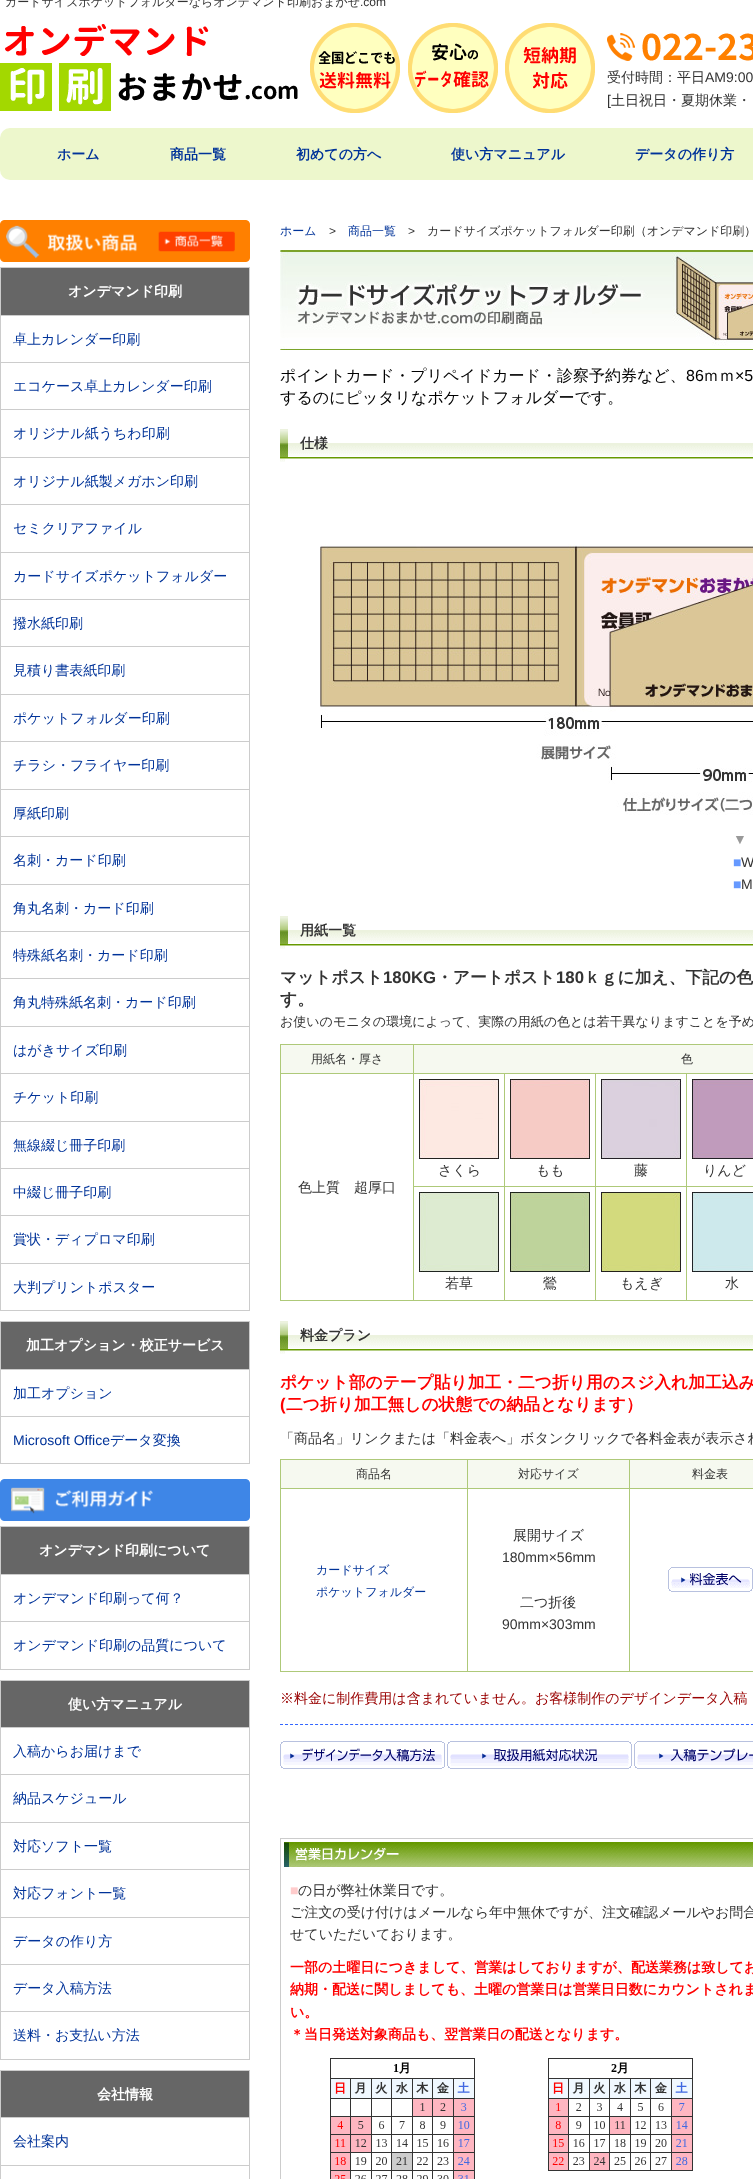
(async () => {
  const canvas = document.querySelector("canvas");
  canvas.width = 753;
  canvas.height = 2179;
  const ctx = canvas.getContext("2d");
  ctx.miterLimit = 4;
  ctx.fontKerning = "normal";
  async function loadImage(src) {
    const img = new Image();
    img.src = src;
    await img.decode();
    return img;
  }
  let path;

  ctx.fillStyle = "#ffffff";
  ctx.fillRect(0, 0, 753, 2179);
  ctx.drawImage(await loadImage("img/1.png"), 0, 24, 298, 87);
  ctx.drawImage(await loadImage("img/2.png"), 310, 23, 285, 90);
  ctx.drawImage(await loadImage("img/3.png"), 607, 33, 146, 28);
  ctx.fillStyle = "#edf7cc";
  ctx.beginPath();
  ctx.roundRect(0, 128, 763, 52, 10);
  ctx.fill();
  ctx.drawImage(await loadImage("img/4.png"), 0, 220, 250, 42);
  ctx.strokeStyle = "#cccccc";
  ctx.strokeRect(0.5, 267.5, 249, 1043);
  for (const [x, y, w, h, color] of [
    [1, 268, 248, 47, "#666666"],
    [1, 315, 248, 1, "#cccccc"],
    [1, 362, 248, 1, "#cccccc"],
    [1, 409, 248, 1, "#cccccc"],
    [1, 457, 248, 1, "#cccccc"],
    [1, 504, 248, 1, "#cccccc"],
    [1, 552, 248, 1, "#cccccc"],
    [1, 599, 248, 1, "#cccccc"],
    [1, 646, 248, 1, "#cccccc"],
    [1, 694, 248, 1, "#cccccc"],
    [1, 741, 248, 1, "#cccccc"],
    [1, 789, 248, 1, "#cccccc"],
    [1, 836, 248, 1, "#cccccc"],
    [1, 884, 248, 1, "#cccccc"],
    [1, 931, 248, 1, "#cccccc"],
    [1, 978, 248, 1, "#cccccc"],
    [1, 1026, 248, 1, "#cccccc"],
    [1, 1073, 248, 1, "#cccccc"],
    [1, 1121, 248, 1, "#cccccc"],
    [1, 1168, 248, 1, "#cccccc"],
    [1, 1215, 248, 1, "#cccccc"],
    [1, 1263, 248, 1, "#cccccc"],
  ]) {
    ctx.fillStyle = color;
    ctx.fillRect(x, y, w, h);
  }
  ctx.strokeRect(0.5, 1321.5, 249, 142);
  for (const [x, y, w, h, color] of [
    [1, 1322, 248, 47, "#666666"],
    [1, 1369, 248, 1, "#cccccc"],
    [1, 1416, 248, 1, "#cccccc"],
  ]) {
    ctx.fillStyle = color;
    ctx.fillRect(x, y, w, h);
  }
  ctx.drawImage(await loadImage("img/5.png"), 0, 1479, 250, 42);
  ctx.strokeRect(0.5, 1526.5, 249, 143);
  for (const [x, y, w, h, color] of [
    [1, 1527, 248, 47, "#666666"],
    [1, 1574, 248, 1, "#cccccc"],
    [1, 1621, 248, 1, "#cccccc"],
  ]) {
    ctx.fillStyle = color;
    ctx.fillRect(x, y, w, h);
  }
  ctx.strokeRect(0.5, 1680.5, 249, 379);
  for (const [x, y, w, h, color] of [
    [1, 1681, 248, 46, "#666666"],
    [1, 1727, 248, 1, "#cccccc"],
    [1, 1774, 248, 1, "#cccccc"],
    [1, 1822, 248, 1, "#cccccc"],
    [1, 1869, 248, 1, "#cccccc"],
    [1, 1917, 248, 1, "#cccccc"],
    [1, 1964, 248, 1, "#cccccc"],
    [1, 2011, 248, 1, "#cccccc"],
  ]) {
    ctx.fillStyle = color;
    ctx.fillRect(x, y, w, h);
  }
  ctx.strokeRect(0.5, 2070.5, 249, 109);
  for (const [x, y, w, h, color] of [
    [1, 2071, 248, 46, "#666666"],
    [1, 2117, 248, 1, "#cccccc"],
    [1, 2165, 248, 1, "#cccccc"],
  ]) {
    ctx.fillStyle = color;
    ctx.fillRect(x, y, w, h);
  }
  ctx.drawImage(await loadImage("img/6.png"), 280, 250, 473, 100);
  ctx.drawImage(await loadImage("img/7.png"), 280, 429, 473, 33);
  ctx.drawImage(await loadImage("img/8.png"), 320, 544, 433, 271);
  ctx.drawImage(await loadImage("img/7.png"), 280, 916, 473, 33);
  for (const [x, y, w, h, color] of [
    [281, 1045, 132, 28, "#f6f9f0"],
    [413, 1044, 340, 1, "#aec979"],
    [686, 1073, 67, 1, "#aec979"],
    [686, 1186, 67, 1, "#aec979"],
    [686, 1300, 67, 1, "#aec979"],
    [686, 1186, 1, 115, "#aec979"],
    [595, 1186, 92, 1, "#aec979"],
    [686, 1073, 1, 114, "#aec979"],
    [595, 1073, 92, 1, "#aec979"],
    [595, 1300, 92, 1, "#aec979"],
    [595, 1186, 1, 115, "#aec979"],
    [504, 1186, 92, 1, "#aec979"],
    [595, 1073, 1, 114, "#aec979"],
    [504, 1073, 92, 1, "#aec979"],
    [504, 1300, 92, 1, "#aec979"],
    [504, 1186, 1, 115, "#aec979"],
    [413, 1186, 92, 1, "#aec979"],
    [504, 1073, 1, 114, "#aec979"],
    [413, 1073, 92, 1, "#aec979"],
    [413, 1300, 92, 1, "#aec979"],
    [413, 1186, 1, 115, "#aec979"],
    [413, 1073, 1, 114, "#aec979"],
    [280, 1073, 134, 1, "#aec979"],
    [413, 1044, 1, 30, "#aec979"],
    [280, 1044, 134, 1, "#aec979"],
    [280, 1300, 134, 1, "#aec979"],
    [280, 1073, 1, 228, "#aec979"],
    [280, 1044, 1, 30, "#aec979"],
    [414, 1045, 339, 28, "#f6f9f0"],
  ]) {
    ctx.fillStyle = color;
    ctx.fillRect(x, y, w, h);
  }
  ctx.drawImage(await loadImage("img/9.png"), 419, 1079, 80, 80);
  ctx.drawImage(await loadImage("img/10.png"), 510, 1079, 80, 80);
  ctx.drawImage(await loadImage("img/11.png"), 601, 1079, 80, 80);
  ctx.drawImage(await loadImage("img/12.png"), 692, 1079, 61, 80);
  ctx.drawImage(await loadImage("img/13.png"), 419, 1192, 80, 80);
  ctx.drawImage(await loadImage("img/14.png"), 510, 1192, 80, 80);
  ctx.drawImage(await loadImage("img/15.png"), 601, 1192, 80, 80);
  ctx.drawImage(await loadImage("img/16.png"), 692, 1192, 61, 80);
  ctx.drawImage(await loadImage("img/7.png"), 280, 1321, 473, 33);
  for (const [x, y, w, h, color] of [
    [281, 1460, 186, 28, "#f6f9f0"],
    [629, 1459, 124, 1, "#aec979"],
    [629, 1488, 124, 1, "#aec979"],
    [629, 1671, 124, 1, "#aec979"],
    [629, 1488, 1, 184, "#aec979"],
    [467, 1488, 163, 1, "#aec979"],
    [629, 1459, 1, 30, "#aec979"],
    [467, 1459, 163, 1, "#aec979"],
    [467, 1671, 163, 1, "#aec979"],
    [467, 1488, 1, 184, "#aec979"],
    [280, 1488, 188, 1, "#aec979"],
    [467, 1459, 1, 30, "#aec979"],
    [280, 1459, 188, 1, "#aec979"],
    [280, 1671, 188, 1, "#aec979"],
    [280, 1488, 1, 184, "#aec979"],
    [280, 1459, 1, 30, "#aec979"],
    [468, 1460, 161, 28, "#f6f9f0"],
    [630, 1460, 123, 28, "#f6f9f0"],
  ]) {
    ctx.fillStyle = color;
    ctx.fillRect(x, y, w, h);
  }
  ctx.drawImage(await loadImage("img/17.png"), 668, 1567, 85, 25);
  path = new Path2D("M280 1724.5H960");
  ctx.strokeStyle = "#3366ff";
  ctx.setLineDash([3, 2.01]);
  ctx.stroke(path);
  ctx.drawImage(await loadImage("img/18.png"), 280, 1741, 165, 28);
  ctx.drawImage(await loadImage("img/19.png"), 447, 1741, 185, 28);
  ctx.drawImage(await loadImage("img/20.png"), 634, 1741, 119, 28);
  ctx.strokeStyle = "#cccccc";
  ctx.setLineDash([]);
  ctx.strokeRect(280.5, 1838.5, 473, 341);
  ctx.drawImage(await loadImage("img/21.png"), 284, 1842, 469, 25);
  ctx.drawImage(await loadImage("img/22.png"), 330, 2058, 363, 121);
  ctx.font = "500 12px WenQuanYi Zen Hei";
  ctx.fillStyle = "#333333";
  ctx.fillText("カードサイズポケットフォルダーならオンデマンド印刷おまかせ", 5, 6);
  ctx.font = "12px Liberation Sans";
  ctx.fillText(".com", 360, 6);
  ctx.font = "500 14px WenQuanYi Zen Hei";
  ctx.fillText("受付時間：平日", 607, 82);
  ctx.font = "14px Liberation Sans";
  ctx.fillText("AM9:00", 705, 82);
  ctx.fillText("[", 607, 105);
  ctx.font = "500 14px WenQuanYi Zen Hei";
  ctx.fillText("土日祝日・夏期休業・", 611, 105);
  ctx.font = "bold 14px WenQuanYi Zen Hei";
  ctx.fillStyle = "#003399";
  for (const [text, x, y] of [
    ["ホーム", 57, 159],
    ["商品一覧", 170, 159],
    ["初めての方へ", 296, 159],
    ["使い方マニュアル", 451, 159],
    ["データの作り方", 635, 159],
  ]) {
    ctx.fillText(text, x, y);
  }
  ctx.fillStyle = "#ffffff";
  ctx.fillText("オンデマンド印刷", 68, 296);
  ctx.font = "500 14px WenQuanYi Zen Hei";
  ctx.fillStyle = "#003399";
  for (const [text, x, y] of [
    ["卓上カレンダー印刷", 13, 344],
    ["エコケース卓上カレンダー印刷", 13, 391],
    ["オリジナル紙うちわ印刷", 13, 438],
    ["オリジナル紙製メガホン印刷", 13, 486],
    ["セミクリアファイル", 13, 533],
    ["カードサイズポケットフォルダー", 13, 581],
    ["撥水紙印刷", 13, 628],
    ["見積り書表紙印刷", 13, 675],
    ["ポケットフォルダー印刷", 13, 723],
    ["チラシ・フライヤー印刷", 13, 770],
    ["厚紙印刷", 13, 818],
    ["名刺・カード印刷", 13, 865],
    ["角丸名刺・カード印刷", 13, 913],
    ["特殊紙名刺・カード印刷", 13, 960],
    ["角丸特殊紙名刺・カード印刷", 13, 1007],
    ["はがきサイズ印刷", 13, 1055],
    ["チケット印刷", 13, 1102],
    ["無線綴じ冊子印刷", 13, 1150],
    ["中綴じ冊子印刷", 13, 1197],
    ["賞状・ディプロマ印刷", 13, 1244],
    ["大判プリントポスター", 13, 1292],
  ]) {
    ctx.fillText(text, x, y);
  }
  ctx.font = "bold 14px WenQuanYi Zen Hei";
  ctx.fillStyle = "#ffffff";
  ctx.fillText("加工オプション・校正サービス", 26, 1350);
  ctx.font = "500 14px WenQuanYi Zen Hei";
  ctx.fillStyle = "#003399";
  ctx.fillText("加工オプション", 13, 1398);
  ctx.font = "14px Liberation Sans";
  ctx.fillText("Microsoft Office", 13, 1445);
  ctx.font = "500 14px WenQuanYi Zen Hei";
  ctx.fillText("データ変換", 110, 1445);
  ctx.font = "bold 14px WenQuanYi Zen Hei";
  ctx.fillStyle = "#ffffff";
  ctx.fillText("オンデマンド印刷について", 39, 1555);
  ctx.font = "500 14px WenQuanYi Zen Hei";
  ctx.fillStyle = "#003399";
  ctx.fillText("オンデマンド印刷って何？", 13, 1603);
  ctx.fillText("オンデマンド印刷の品質について", 13, 1650);
  ctx.font = "bold 14px WenQuanYi Zen Hei";
  ctx.fillStyle = "#ffffff";
  ctx.fillText("使い方マニュアル", 68, 1709);
  ctx.font = "500 14px WenQuanYi Zen Hei";
  ctx.fillStyle = "#003399";
  for (const [text, x, y] of [
    ["入稿からお届けまで", 13, 1756],
    ["納品スケジュール", 13, 1803],
    ["対応ソフト一覧", 13, 1851],
    ["対応フォント一覧", 13, 1898],
    ["データの作り方", 13, 1946],
    ["データ入稿方法", 13, 1993],
    ["送料・お支払い方法", 13, 2040],
  ]) {
    ctx.fillText(text, x, y);
  }
  ctx.font = "bold 14px WenQuanYi Zen Hei";
  ctx.fillStyle = "#ffffff";
  ctx.fillText("会社情報", 97, 2099);
  ctx.font = "500 14px WenQuanYi Zen Hei";
  ctx.fillStyle = "#003399";
  ctx.fillText("会社案内", 13, 2146);
  ctx.font = "500 12px WenQuanYi Zen Hei";
  ctx.fillText("ホーム", 280, 235);
  ctx.font = "12px Liberation Sans";
  ctx.fillStyle = "#333333";
  ctx.fillText(">", 329, 235);
  ctx.font = "500 12px WenQuanYi Zen Hei";
  ctx.fillStyle = "#003399";
  ctx.fillText("商品一覧", 348, 235);
  ctx.font = "12px Liberation Sans";
  ctx.fillStyle = "#333333";
  ctx.fillText(">", 408, 235);
  ctx.font = "500 12px WenQuanYi Zen Hei";
  ctx.fillText("カードサイズポケットフォルダー印刷（オンデマンド印刷）", 427, 235);
  ctx.font = "500 16px WenQuanYi Zen Hei";
  ctx.fillStyle = "#000000";
  ctx.fillText("ポイントカード・プリペイドカード・診察予約券など、", 280, 381);
  ctx.font = "16px Liberation Sans";
  ctx.fillText("86", 686, 381);
  ctx.font = "500 16px WenQuanYi Zen Hei";
  ctx.fillText("ｍｍ", 703, 381);
  ctx.font = "16px Liberation Sans";
  ctx.fillText("×5", 735, 381);
  ctx.font = "500 16px WenQuanYi Zen Hei";
  ctx.fillText("するのにピッタリなポケットフォルダーです。", 280, 403);
  ctx.font = "bold 14px WenQuanYi Zen Hei";
  ctx.fillStyle = "#333333";
  ctx.fillText("仕様", 300, 448);
  ctx.font = "bold 14px Liberation Sans";
  ctx.fillStyle = "#999999";
  ctx.fillText("▼", 733, 844);
  ctx.font = "14px Liberation Sans";
  ctx.fillStyle = "#6699ff";
  ctx.fillText("■", 733, 867);
  ctx.fillStyle = "#333333";
  ctx.fillText("W", 741, 867);
  ctx.fillStyle = "#6699ff";
  ctx.fillText("■", 733, 889);
  ctx.fillStyle = "#333333";
  ctx.fillText("M", 741, 889);
  ctx.font = "bold 14px WenQuanYi Zen Hei";
  ctx.fillText("用紙一覧", 300, 935);
  ctx.font = "bold 16.8px WenQuanYi Zen Hei";
  ctx.fillText("マットポスト", 280, 983);
  ctx.font = "bold 16.8px Liberation Sans";
  ctx.fillText("180KG", 383, 983);
  ctx.font = "bold 16.8px WenQuanYi Zen Hei";
  ctx.fillText("・アートポスト", 436, 983);
  ctx.font = "bold 16.8px Liberation Sans";
  ctx.fillText("180", 556, 983);
  ctx.font = "bold 16.8px WenQuanYi Zen Hei";
  ctx.fillText("ｋｇに加え、下記の色", 584, 983);
  ctx.fillText("す。", 280, 1005);
  ctx.font = "500 13px WenQuanYi Zen Hei";
  ctx.fillText("お使いのモニタの環境によって、実際の用紙の色とは若干異なりますことを予め", 280, 1026);
  ctx.font = "500 12px WenQuanYi Zen Hei";
  ctx.fillText("用紙名・厚さ", 311, 1063);
  ctx.fillText("色", 681, 1063);
  ctx.font = "500 14px WenQuanYi Zen Hei";
  for (const [text, x, y] of [
    ["さくら", 438, 1175],
    ["もも", 536, 1175],
    ["藤", 634, 1175],
    ["りんど", 703, 1175],
    ["色上質　超厚口", 298, 1192],
    ["若草", 445, 1288],
    ["鶯", 543, 1288],
    ["もえぎ", 620, 1288],
    ["水", 725, 1288],
  ]) {
    ctx.fillText(text, x, y);
  }
  ctx.font = "bold 14px WenQuanYi Zen Hei";
  ctx.fillText("料金プラン", 300, 1340);
  ctx.font = "bold 16.8px WenQuanYi Zen Hei";
  ctx.fillStyle = "#ff0000";
  ctx.fillText("ポケット部のテープ貼り加工・二つ折り用のスジ入れ加工込み", 280, 1388);
  ctx.font = "bold 16.8px Liberation Sans";
  ctx.fillText("(", 280, 1410);
  ctx.font = "bold 16.8px WenQuanYi Zen Hei";
  ctx.fillText("二つ折り加工無しの状態での納品となります）", 286, 1410);
  ctx.font = "500 14px WenQuanYi Zen Hei";
  ctx.fillStyle = "#333333";
  ctx.fillText("「商品名」リンクまたは「料金表へ」ボタンクリックで各料金表が表示され", 280, 1443);
  ctx.font = "500 12px WenQuanYi Zen Hei";
  for (const [text, x, y] of [
    ["商品名", 356, 1478],
    ["対応サイズ", 518, 1478],
    ["料金表", 692, 1478],
  ]) {
    ctx.fillText(text, x, y);
  }
  ctx.fillStyle = "#003399";
  ctx.fillText("カードサイズ", 316, 1574);
  ctx.fillText("ポケットフォルダー", 316, 1596);
  ctx.font = "500 14px WenQuanYi Zen Hei";
  ctx.fillStyle = "#333333";
  ctx.fillText("展開サイズ", 513, 1540);
  ctx.font = "14px Liberation Sans";
  ctx.fillText("180mm×56mm", 502, 1562);
  ctx.font = "500 14px WenQuanYi Zen Hei";
  ctx.fillText("二つ折後", 520, 1607);
  ctx.font = "14px Liberation Sans";
  ctx.fillText("90mm×303mm", 502, 1629);
  ctx.font = "500 14px WenQuanYi Zen Hei";
  ctx.fillStyle = "#990000";
  ctx.fillText("※料金に制作費用は含まれていません。お客様制作のデザインデータ入稿", 280, 1703);
  ctx.font = "14px Liberation Sans";
  ctx.fillStyle = "#ffcccc";
  ctx.fillText("■", 290, 1895);
  ctx.font = "500 14px WenQuanYi Zen Hei";
  ctx.fillStyle = "#333333";
  for (const [text, x, y] of [
    ["の日が弊社休業日です。", 298, 1895],
    ["ご注文の受け付けはメールなら年中無休ですが、注文確認メールやお問合", 290, 1917],
    ["せていただいております。", 290, 1939],
  ]) {
    ctx.fillText(text, x, y);
  }
  ctx.font = "bold 14px WenQuanYi Zen Hei";
  ctx.fillStyle = "#ff0000";
  for (const [text, x, y] of [
    ["一部の土曜日につきまして、営業はしておりますが、配送業務は致してお", 290, 1972],
    ["納期・配送に関しましても、土曜の営業日は営業日日数にカウントされま", 290, 1994],
    ["い。", 290, 2017],
    ["＊当日発送対象商品も、翌営業日の配送となります。", 290, 2039],
  ]) {
    ctx.fillText(text, x, y);
  }
})();
